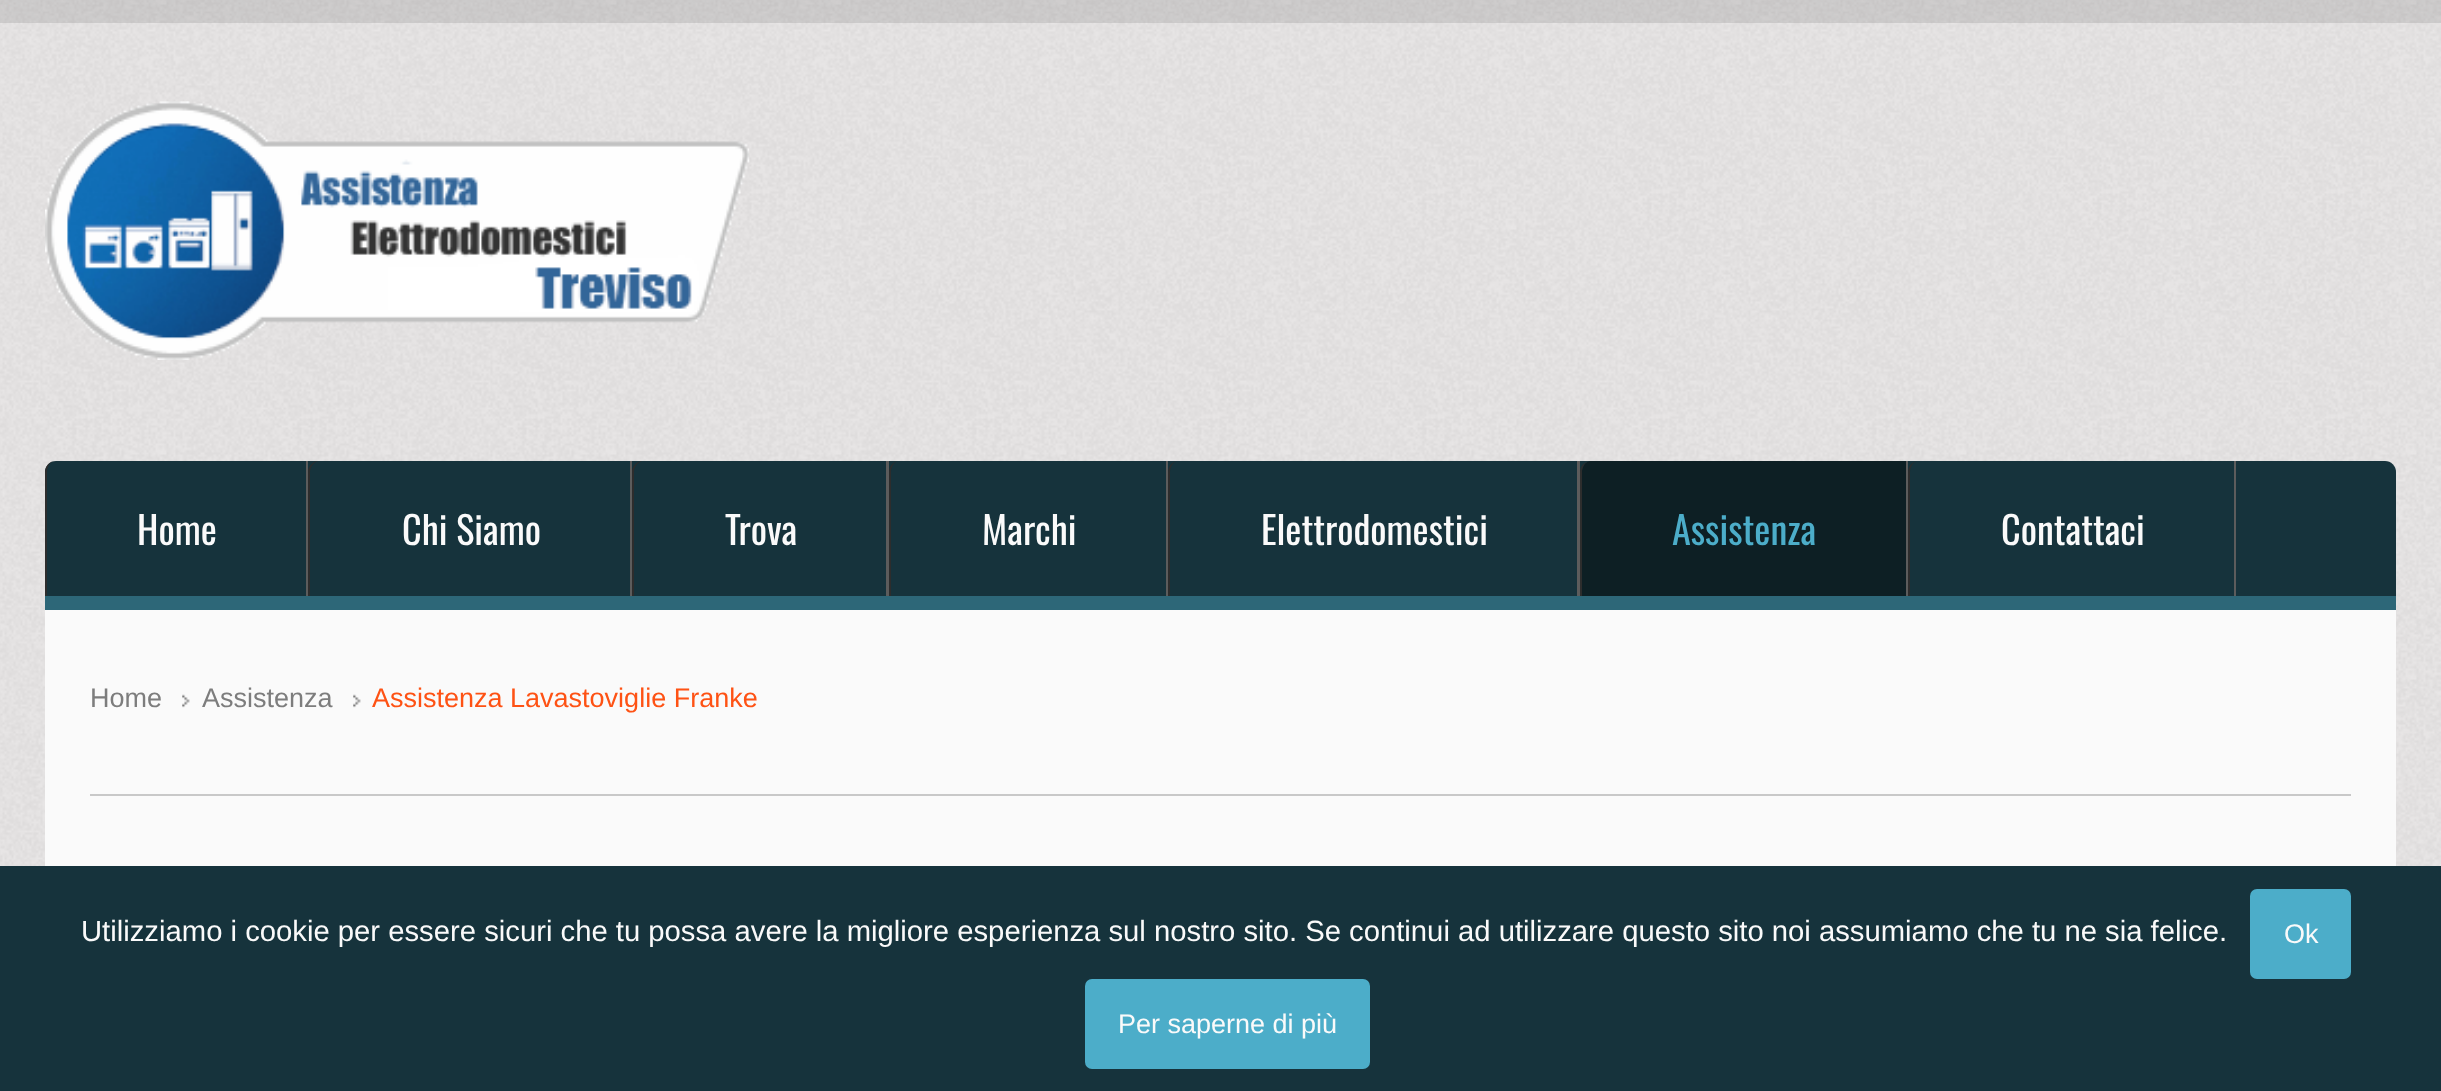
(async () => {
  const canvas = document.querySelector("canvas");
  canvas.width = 2441;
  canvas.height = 1091;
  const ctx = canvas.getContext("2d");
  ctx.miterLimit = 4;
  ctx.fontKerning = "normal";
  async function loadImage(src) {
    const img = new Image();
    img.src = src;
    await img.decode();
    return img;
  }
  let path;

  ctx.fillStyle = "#ffffff";
  ctx.fillRect(0, 0, 2441, 1091);
  ctx.drawImage(await loadImage("img/1.png"), 0, 0, 2441, 866);
  ctx.fillStyle = "rgba(0, 0, 0, 0.1)";
  ctx.fillRect(0, 0, 2441, 23);
  ctx.drawImage(await loadImage("img/2.png"), 45, 101, 705, 259);
  ctx.fillStyle = "#16333c";
  ctx.beginPath();
  ctx.roundRect(45, 461, 2351, 149, [11, 11, 0, 0]);
  ctx.fill();
  ctx.fillStyle = "#2d6778";
  ctx.fillRect(45, 596, 2351, 14);
  ctx.fillStyle = "#5c5c5c";
  ctx.fillRect(306, 461, 2, 135);
  ctx.fillStyle = "#2d2d2d";
  path = new Path2D("M45 596H47V472C47 467 50 462 54 461C49 462 45 467 45 472Z");
  ctx.fill(path);
  ctx.fillStyle = "#5c5c5c";
  ctx.fillRect(630, 461, 2, 135);
  ctx.fillStyle = "#2d2d2d";
  path = new Path2D("M308 596H310V472C310 467 314 462 318 461H317C313 462 309 466 308 470Z");
  ctx.fill(path);
  ctx.fillStyle = "#5c5c5c";
  ctx.fillRect(886, 461, 3, 135);
  ctx.fillStyle = "#2d2d2d";
  path = new Path2D("M632 596H634V472C634 467 638 462 642 461H641C637 462 633 466 632 470Z");
  ctx.fill(path);
  ctx.fillStyle = "#5c5c5c";
  ctx.fillRect(1166, 461, 2, 135);
  ctx.fillStyle = "#2d2d2d";
  path = new Path2D("M889 596H891V472C891 467 894 462 898 461C893 462 889 467 889 472Z");
  ctx.fill(path);
  ctx.fillStyle = "#5c5c5c";
  ctx.fillRect(1577, 461, 3, 135);
  ctx.fillStyle = "#2d2d2d";
  path = new Path2D("M1168 596H1170V472C1170 467 1173 462 1177 461C1172 462 1168 467 1168 472Z");
  ctx.fill(path);
  ctx.fillStyle = "#0d1f24";
  path = new Path2D("M1591 461H1906V596H1582V472C1582 466 1586 461 1591 461Z");
  ctx.fill(path);
  ctx.fillStyle = "#5c5c5c";
  ctx.fillRect(1906, 461, 2, 135);
  ctx.fillStyle = "#2d2d2d";
  path = new Path2D("M1580 596H1582V472C1582 467 1585 462 1589 461C1584 462 1580 467 1580 472Z");
  ctx.fill(path);
  ctx.fillStyle = "#5c5c5c";
  ctx.fillRect(2234, 461, 2, 135);
  ctx.fillStyle = "#2d2d2d";
  path = new Path2D("M1908 596H1910V472C1910 467 1913 462 1917 461C1912 462 1908 467 1908 472Z");
  ctx.fill(path);
  ctx.fillStyle = "#fafafa";
  ctx.fillRect(45, 610, 2351, 256);
  ctx.fillStyle = "#c8c8c8";
  ctx.fillRect(90, 794, 2261, 2);
  ctx.drawImage(await loadImage("img/3.png"), 182, 694, 8, 14);
  ctx.drawImage(await loadImage("img/3.png"), 353, 694, 8, 14);
  ctx.fillStyle = "#16333c";
  ctx.fillRect(0, 866, 2441, 225);
  ctx.fillStyle = "#4cadc9";
  ctx.beginPath();
  ctx.roundRect(2250, 889, 101, 90, 7);
  ctx.fill();
  ctx.beginPath();
  ctx.roundRect(1085, 979, 285, 90, 7);
  ctx.fill();
  ctx.font = "38.25px Oswald";
  ctx.fillStyle = "#fafafa";
  for (const [text, x, y] of [
    ["Home", 137, 545],
    ["Chi Siamo", 402, 545],
    ["Trova", 725, 545],
    ["Marchi", 982, 545],
    ["Elettrodomestici", 1261, 545],
  ]) {
    ctx.fillText(text, x, y);
  }
  ctx.fillStyle = "#4cadc9";
  ctx.fillText("Assistenza", 1672, 545);
  ctx.fillStyle = "#fafafa";
  ctx.fillText("Contattaci", 2001, 545);
  ctx.font = "27px Liberation Sans";
  ctx.fillStyle = "#7d7d7d";
  ctx.fillText("Home", 90, 707);
  ctx.fillText("Assistenza", 202, 707);
  ctx.fillStyle = "#fe5214";
  ctx.fillText("Assistenza Lavastoviglie Franke", 372, 707);
  ctx.font = "29.25px Liberation Sans";
  ctx.fillStyle = "#fafafa";
  ctx.fillText("Utilizziamo i cookie per essere sicuri che tu possa avere la migliore esperienza sul nostro sito. Se continui ad utilizzare questo sito noi assumiamo che tu ne sia felice.", 81, 941);
  ctx.font = "27px Liberation Sans";
  ctx.fillText("Ok", 2284, 943);
  ctx.fillText("Per saperne di più", 1118, 1033);
})();
